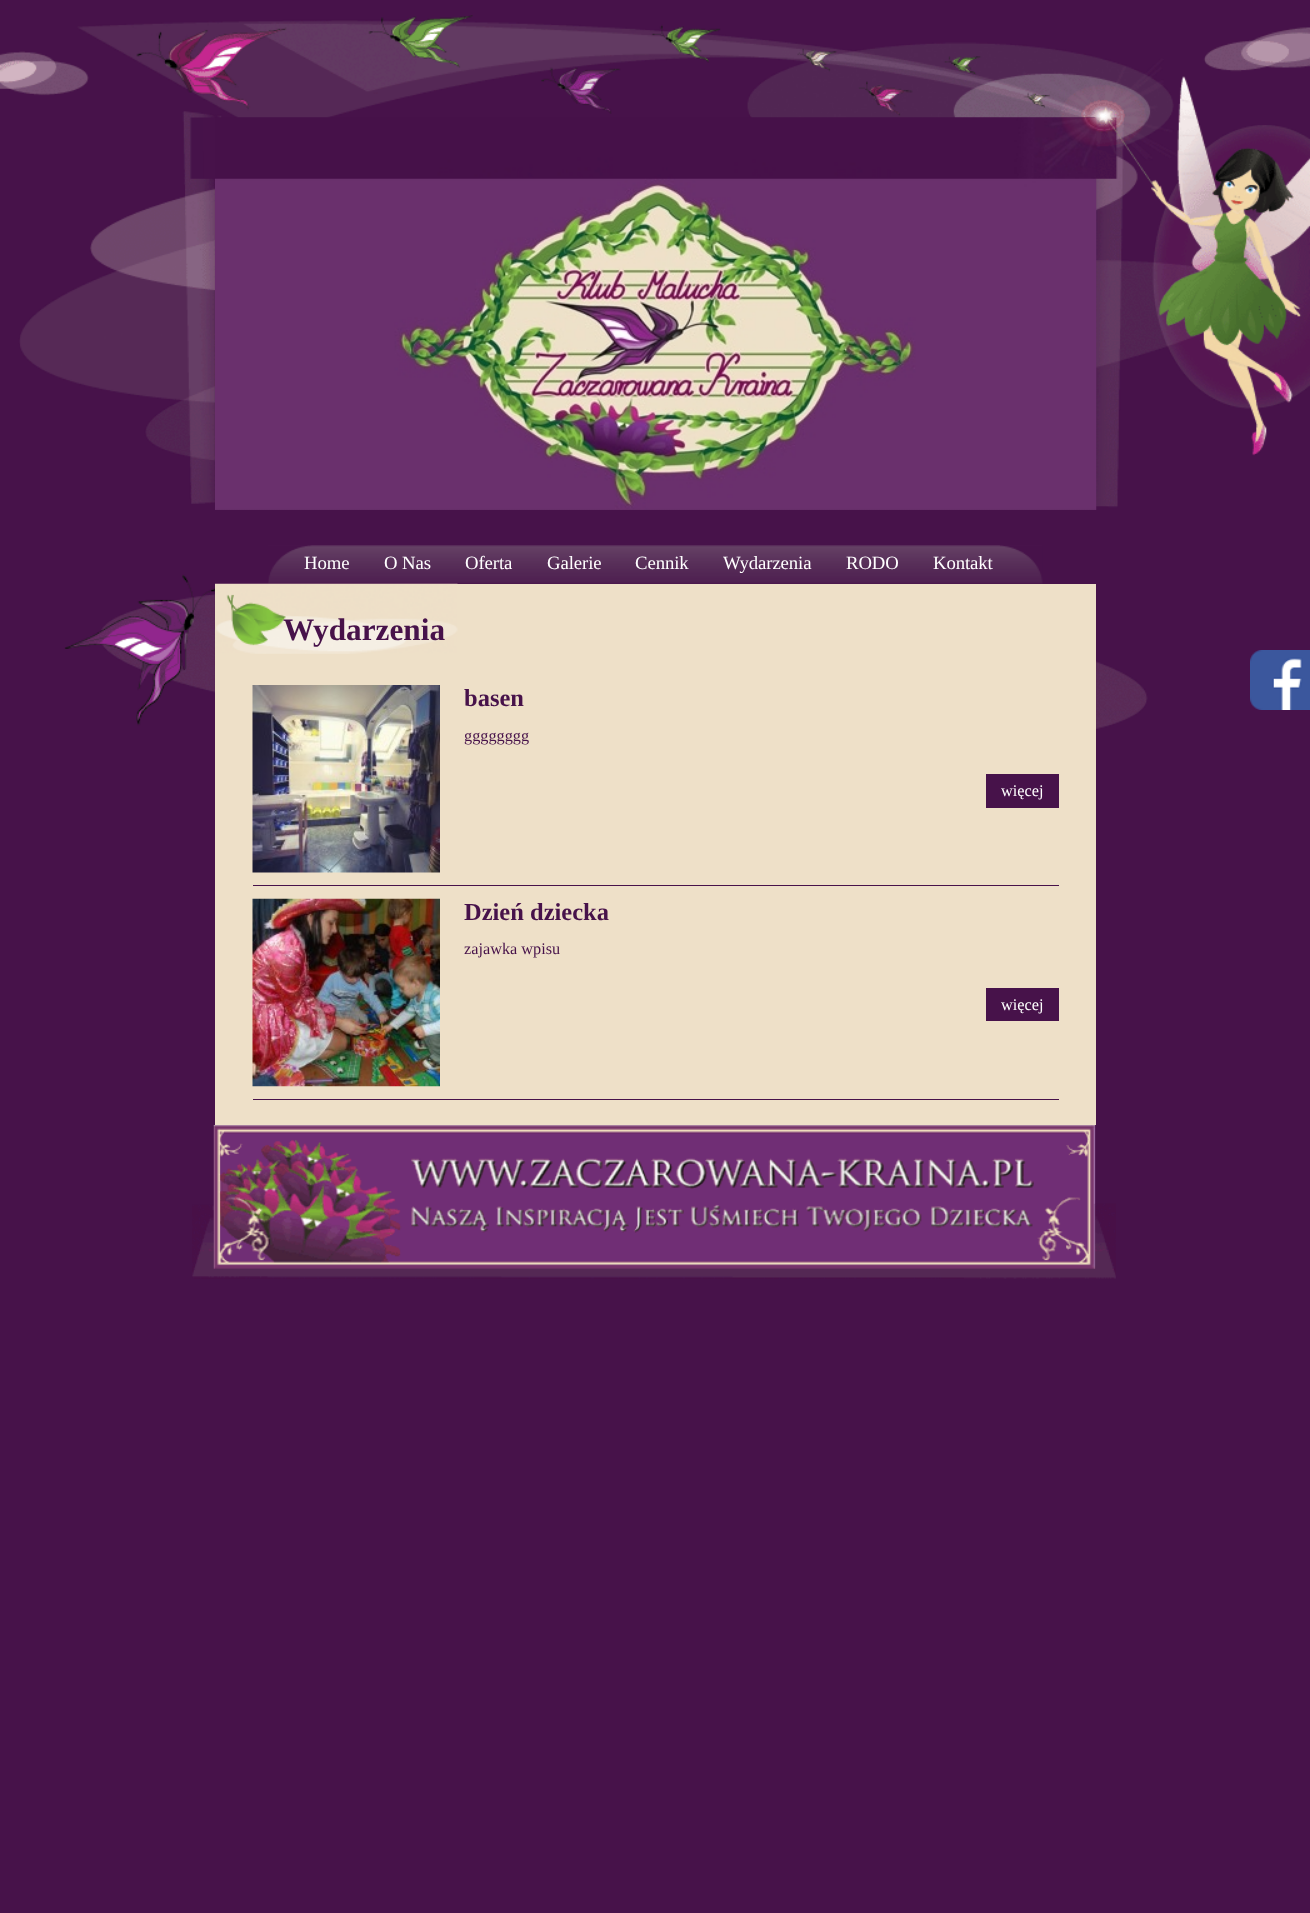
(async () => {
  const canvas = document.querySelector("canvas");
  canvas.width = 1310;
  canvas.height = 1913;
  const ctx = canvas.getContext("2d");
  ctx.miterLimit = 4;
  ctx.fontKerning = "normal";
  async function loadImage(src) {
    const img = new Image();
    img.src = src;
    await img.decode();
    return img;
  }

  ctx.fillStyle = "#47124a";
  ctx.fillRect(0, 0, 1310, 1913);
  ctx.drawImage(await loadImage("img/1.png"), 0, 15, 1310, 714);
  ctx.drawImage(await loadImage("img/2.png"), 215, 117, 882, 393);
  ctx.drawImage(await loadImage("img/3.png"), 268, 545, 775, 39);
  ctx.fillStyle = "#eee0c8";
  ctx.fillRect(215, 584, 881, 541);
  ctx.drawImage(await loadImage("img/4.png"), 215, 583, 243, 71);
  ctx.fillStyle = "#47124a";
  ctx.fillRect(253, 885, 806, 1);
  ctx.drawImage(await loadImage("img/5.png"), 252, 685, 188, 188);
  ctx.fillRect(986, 774, 73, 34);
  ctx.fillRect(253, 1099, 806, 1);
  ctx.drawImage(await loadImage("img/6.png"), 252, 898, 188, 189);
  ctx.fillRect(986, 988, 73, 33);
  ctx.drawImage(await loadImage("img/7.png"), 1250, 650, 60, 60);
  ctx.drawImage(await loadImage("img/8.png"), 192, 1125, 924, 154);
  ctx.letterSpacing = "-0.1px";
  ctx.font = "18.75px Liberation Serif";
  ctx.fillStyle = "#ffffff";
  for (const [text, x, y] of [
    ["Home", 304, 569],
    ["O Nas", 384, 569],
    ["Oferta", 465, 569],
    ["Galerie", 547, 569],
    ["Cennik", 635, 569],
    ["Wydarzenia", 723, 569],
    ["RODO", 846, 569],
    ["Kontakt", 933, 569],
  ]) {
    ctx.fillText(text, x, y);
  }
  ctx.letterSpacing = "0px";
  ctx.font = "bold 31.25px Liberation Serif";
  ctx.fillStyle = "#47124a";
  ctx.fillText("Wydarzenia", 283, 640);
  ctx.font = "bold 24.5px Liberation Serif";
  ctx.fillText("basen", 464, 706);
  ctx.font = "16.25px Liberation Serif";
  ctx.fillText("gggggggg", 464, 741);
  ctx.fillStyle = "#ffffff";
  ctx.fillText("więcej", 1001, 796);
  ctx.font = "bold 24.5px Liberation Serif";
  ctx.fillStyle = "#47124a";
  ctx.fillText("Dzień dziecka", 464, 920);
  ctx.font = "16.25px Liberation Serif";
  ctx.fillText("zajawka wpisu", 464, 954);
  ctx.fillStyle = "#ffffff";
  ctx.fillText("więcej", 1001, 1010);
})();
